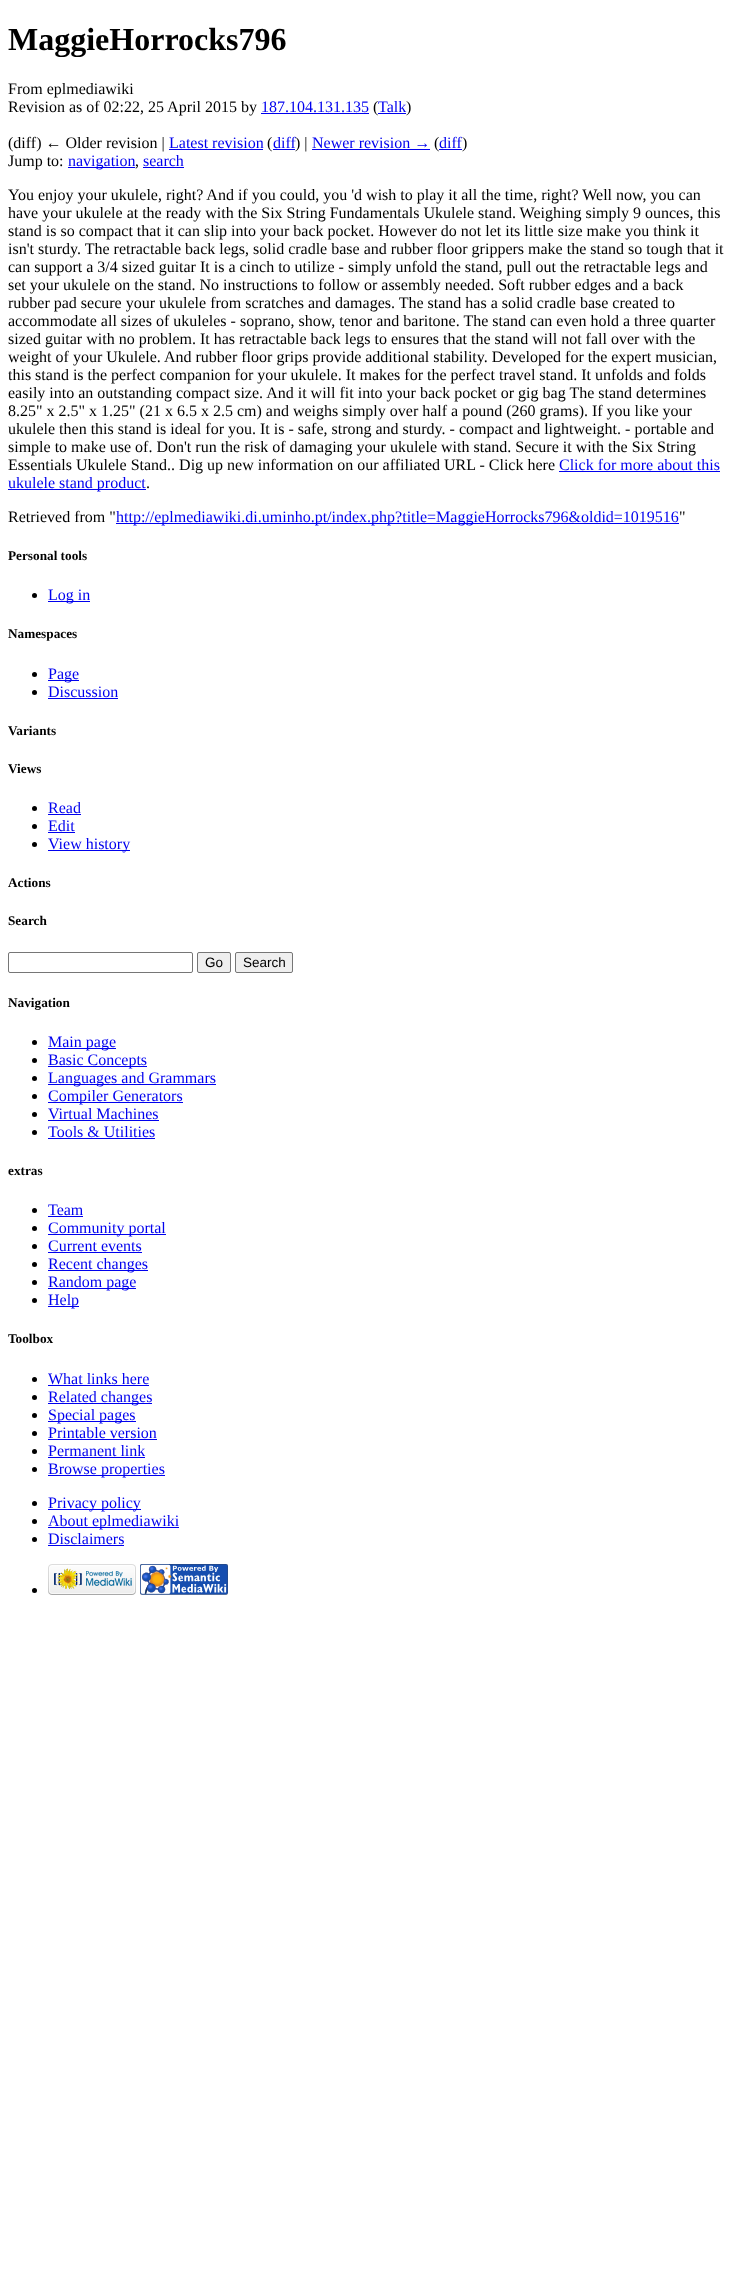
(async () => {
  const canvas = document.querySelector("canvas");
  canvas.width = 734;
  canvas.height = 2289;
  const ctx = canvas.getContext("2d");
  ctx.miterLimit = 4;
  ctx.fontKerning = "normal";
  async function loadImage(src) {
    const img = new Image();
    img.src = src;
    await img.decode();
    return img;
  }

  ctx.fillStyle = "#ffffff";
  ctx.fillRect(0, 0, 734, 2289);
  for (const [x, y, w, h, color] of [
    [261, 113, 108, 1, "#0000ee"],
    [378, 113, 28, 1, "#0000ee"],
    [169, 149, 94, 1, "#0000ee"],
    [273, 149, 22, 1, "#0000ee"],
    [312, 149, 118, 1, "#0000ee"],
    [439, 149, 23, 1, "#0000ee"],
    [68, 167, 67, 1, "#0000ee"],
    [143, 167, 41, 1, "#0000ee"],
    [559, 471, 161, 1, "#0000ee"],
    [8, 489, 138, 1, "#0000ee"],
    [116, 523, 563, 1, "#0000ee"],
  ]) {
    ctx.fillStyle = color;
    ctx.fillRect(x, y, w, h);
  }
  ctx.fillStyle = "#000000";
  ctx.beginPath();
  ctx.arc(34.5, 595.5, 2.5, 0, Math.PI * 2);
  ctx.fill();
  ctx.fillStyle = "#0000ee";
  ctx.fillRect(48, 601, 42, 1);
  ctx.fillStyle = "#000000";
  ctx.beginPath();
  ctx.arc(34.5, 674.5, 2.5, 0, Math.PI * 2);
  ctx.fill();
  ctx.fillStyle = "#0000ee";
  ctx.fillRect(48, 680, 31, 1);
  ctx.fillStyle = "#000000";
  ctx.beginPath();
  ctx.arc(34.5, 692.5, 2.5, 0, Math.PI * 2);
  ctx.fill();
  ctx.fillStyle = "#0000ee";
  ctx.fillRect(48, 698, 70, 1);
  ctx.fillStyle = "#000000";
  ctx.beginPath();
  ctx.arc(34.5, 808.5, 2.5, 0, Math.PI * 2);
  ctx.fill();
  ctx.fillStyle = "#0000ee";
  ctx.fillRect(48, 814, 33, 1);
  ctx.fillStyle = "#000000";
  ctx.beginPath();
  ctx.arc(34.5, 826.5, 2.5, 0, Math.PI * 2);
  ctx.fill();
  ctx.fillStyle = "#0000ee";
  ctx.fillRect(48, 832, 27, 1);
  ctx.fillStyle = "#000000";
  ctx.beginPath();
  ctx.arc(34.5, 844.5, 2.5, 0, Math.PI * 2);
  ctx.fill();
  ctx.fillStyle = "#0000ee";
  ctx.fillRect(48, 850, 82, 1);
  ctx.beginPath();
  ctx.roundRect(8.5, 952.5, 184, 20, 1.5);
  ctx.strokeStyle = "#767676";
  ctx.stroke();
  ctx.fillStyle = "#efefef";
  ctx.beginPath();
  ctx.roundRect(197.5, 952.5, 33, 20, 1.5);
  ctx.fill();
  ctx.stroke();
  ctx.beginPath();
  ctx.roundRect(235.5, 952.5, 57, 20, 1.5);
  ctx.fill();
  ctx.stroke();
  ctx.fillStyle = "#000000";
  ctx.beginPath();
  ctx.arc(34.5, 1042.5, 2.5, 0, Math.PI * 2);
  ctx.fill();
  ctx.fillStyle = "#0000ee";
  ctx.fillRect(48, 1048, 68, 1);
  ctx.fillStyle = "#000000";
  ctx.beginPath();
  ctx.arc(34.5, 1060.5, 2.5, 0, Math.PI * 2);
  ctx.fill();
  ctx.fillStyle = "#0000ee";
  ctx.fillRect(48, 1066, 99, 1);
  ctx.fillStyle = "#000000";
  ctx.beginPath();
  ctx.arc(34.5, 1078.5, 2.5, 0, Math.PI * 2);
  ctx.fill();
  ctx.fillStyle = "#0000ee";
  ctx.fillRect(48, 1084, 168, 1);
  ctx.fillStyle = "#000000";
  ctx.beginPath();
  ctx.arc(34.5, 1096.5, 2.5, 0, Math.PI * 2);
  ctx.fill();
  ctx.fillStyle = "#0000ee";
  ctx.fillRect(48, 1102, 135, 1);
  ctx.fillStyle = "#000000";
  ctx.beginPath();
  ctx.arc(34.5, 1114.5, 2.5, 0, Math.PI * 2);
  ctx.fill();
  ctx.fillStyle = "#0000ee";
  ctx.fillRect(48, 1120, 111, 1);
  ctx.fillStyle = "#000000";
  ctx.beginPath();
  ctx.arc(34.5, 1132.5, 2.5, 0, Math.PI * 2);
  ctx.fill();
  ctx.fillStyle = "#0000ee";
  ctx.fillRect(48, 1138, 107, 1);
  ctx.fillStyle = "#000000";
  ctx.beginPath();
  ctx.arc(34.5, 1210.5, 2.5, 0, Math.PI * 2);
  ctx.fill();
  ctx.fillStyle = "#0000ee";
  ctx.fillRect(48, 1216, 35, 1);
  ctx.fillStyle = "#000000";
  ctx.beginPath();
  ctx.arc(34.5, 1228.5, 2.5, 0, Math.PI * 2);
  ctx.fill();
  ctx.fillStyle = "#0000ee";
  ctx.fillRect(48, 1234, 118, 1);
  ctx.fillStyle = "#000000";
  ctx.beginPath();
  ctx.arc(34.5, 1246.5, 2.5, 0, Math.PI * 2);
  ctx.fill();
  ctx.fillStyle = "#0000ee";
  ctx.fillRect(48, 1252, 94, 1);
  ctx.fillStyle = "#000000";
  ctx.beginPath();
  ctx.arc(34.5, 1264.5, 2.5, 0, Math.PI * 2);
  ctx.fill();
  ctx.fillStyle = "#0000ee";
  ctx.fillRect(48, 1270, 100, 1);
  ctx.fillStyle = "#000000";
  ctx.beginPath();
  ctx.arc(34.5, 1282.5, 2.5, 0, Math.PI * 2);
  ctx.fill();
  ctx.fillStyle = "#0000ee";
  ctx.fillRect(48, 1288, 88, 1);
  ctx.fillStyle = "#000000";
  ctx.beginPath();
  ctx.arc(34.5, 1300.5, 2.5, 0, Math.PI * 2);
  ctx.fill();
  ctx.fillStyle = "#0000ee";
  ctx.fillRect(48, 1306, 31, 1);
  ctx.fillStyle = "#000000";
  ctx.beginPath();
  ctx.arc(34.5, 1379.5, 2.5, 0, Math.PI * 2);
  ctx.fill();
  ctx.fillStyle = "#0000ee";
  ctx.fillRect(48, 1385, 101, 1);
  ctx.fillStyle = "#000000";
  ctx.beginPath();
  ctx.arc(34.5, 1397.5, 2.5, 0, Math.PI * 2);
  ctx.fill();
  ctx.fillStyle = "#0000ee";
  ctx.fillRect(48, 1403, 104, 1);
  ctx.fillStyle = "#000000";
  ctx.beginPath();
  ctx.arc(34.5, 1415.5, 2.5, 0, Math.PI * 2);
  ctx.fill();
  ctx.fillStyle = "#0000ee";
  ctx.fillRect(48, 1421, 88, 1);
  ctx.fillStyle = "#000000";
  ctx.beginPath();
  ctx.arc(34.5, 1433.5, 2.5, 0, Math.PI * 2);
  ctx.fill();
  ctx.fillStyle = "#0000ee";
  ctx.fillRect(48, 1439, 109, 1);
  ctx.fillStyle = "#000000";
  ctx.beginPath();
  ctx.arc(34.5, 1451.5, 2.5, 0, Math.PI * 2);
  ctx.fill();
  ctx.fillStyle = "#0000ee";
  ctx.fillRect(48, 1457, 97, 1);
  ctx.fillStyle = "#000000";
  ctx.beginPath();
  ctx.arc(34.5, 1469.5, 2.5, 0, Math.PI * 2);
  ctx.fill();
  ctx.fillStyle = "#0000ee";
  ctx.fillRect(48, 1475, 117, 1);
  ctx.fillStyle = "#000000";
  ctx.beginPath();
  ctx.arc(34.5, 1503.5, 2.5, 0, Math.PI * 2);
  ctx.fill();
  ctx.fillStyle = "#0000ee";
  ctx.fillRect(48, 1509, 93, 1);
  ctx.fillStyle = "#000000";
  ctx.beginPath();
  ctx.arc(34.5, 1521.5, 2.5, 0, Math.PI * 2);
  ctx.fill();
  ctx.fillStyle = "#0000ee";
  ctx.fillRect(48, 1527, 131, 1);
  ctx.fillStyle = "#000000";
  ctx.beginPath();
  ctx.arc(34.5, 1539.5, 2.5, 0, Math.PI * 2);
  ctx.fill();
  ctx.fillStyle = "#0000ee";
  ctx.fillRect(48, 1545, 76, 1);
  ctx.fillStyle = "#000000";
  ctx.beginPath();
  ctx.arc(34.5, 1590.5, 2.5, 0, Math.PI * 2);
  ctx.fill();
  ctx.drawImage(await loadImage("img/1.png"), 48, 1564, 88, 31);
  ctx.drawImage(await loadImage("img/2.png"), 140, 1564, 88, 31);
  ctx.font = "bold 32px Liberation Serif";
  ctx.fillText("MaggieHorrocks796", 8, 50);
  ctx.font = "16px Liberation Serif";
  ctx.fillText("From eplmediawiki", 8, 94);
  ctx.fillText("Revision as of 02:22, 25 April 2015 by", 8, 112);
  ctx.fillStyle = "#0000ee";
  ctx.fillText("187.104.131.135", 261, 112);
  ctx.fillStyle = "#000000";
  ctx.fillText("(", 373, 112);
  ctx.fillStyle = "#0000ee";
  ctx.fillText("Talk", 378, 112);
  ctx.fillStyle = "#000000";
  ctx.fillText(")", 406, 112);
  ctx.fillText("(diff) ← Older revision |", 8, 148);
  ctx.fillStyle = "#0000ee";
  ctx.fillText("Latest revision", 169, 148);
  ctx.fillStyle = "#000000";
  ctx.fillText("(", 267, 148);
  ctx.fillStyle = "#0000ee";
  ctx.fillText("diff", 273, 148);
  ctx.fillStyle = "#000000";
  ctx.fillText(") |", 295, 148);
  ctx.fillStyle = "#0000ee";
  ctx.fillText("Newer revision →", 312, 148);
  ctx.fillStyle = "#000000";
  ctx.fillText("(", 434, 148);
  ctx.fillStyle = "#0000ee";
  ctx.fillText("diff", 439, 148);
  ctx.fillStyle = "#000000";
  ctx.fillText(")", 462, 148);
  ctx.fillText("Jump to:", 8, 166);
  ctx.fillStyle = "#0000ee";
  ctx.fillText("navigation", 68, 166);
  ctx.fillStyle = "#000000";
  ctx.fillText(",", 135, 166);
  ctx.fillStyle = "#0000ee";
  ctx.fillText("search", 143, 166);
  ctx.fillStyle = "#000000";
  for (const [text, x, y] of [
    ["You enjoy your ukulele, right? And if you could, you 'd wish to play it all the time, right? Well now, you can", 8, 200],
    ["have your ukulele at the ready with the Six String Fundamentals Ukulele stand. Weighing simply 9 ounces, this", 8, 218],
    ["stand is so compact that it can slip into your back pocket. However do not let its little size make you think it", 8, 236],
    ["isn't sturdy. The retractable back legs, solid cradle base and rubber floor grippers make the stand so tough that it", 8, 254],
    ["can support a 3/4 sized guitar It is a cinch to utilize - simply unfold the stand, pull out the retractable legs and", 8, 272],
    ["set your ukulele on the stand. No instructions to follow or assembly needed. Soft rubber edges and a back", 8, 290],
    ["rubber pad secure your ukulele from scratches and damages. The stand has a solid cradle base created to", 8, 308],
    ["accommodate all sizes of ukuleles - soprano, show, tenor and baritone. The stand can even hold a three quarter", 8, 326],
    ["sized guitar with no problem. It has retractable back legs to ensures that the stand will not fall over with the", 8, 344],
    ["weight of your Ukulele. And rubber floor grips provide additional stability. Developed for the expert musician,", 8, 362],
    ["this stand is the perfect companion for your ukulele. It makes for the perfect travel stand. It unfolds and folds", 8, 380],
    ["easily into an outstanding compact size. And it will fit into your back pocket or gig bag The stand determines", 8, 398],
    ["8.25\" x 2.5\" x 1.25\" (21 x 6.5 x 2.5 cm) and weighs simply over half a pound (260 grams). If you like your", 8, 416],
    ["ukulele then this stand is ideal for you. It is - safe, strong and sturdy. - compact and lightweight. - portable and", 8, 434],
    ["simple to make use of. Don't run the risk of damaging your ukulele with stand. Secure it with the Six String", 8, 452],
    ["Essentials Ukulele Stand.. Dig up new information on our affiliated URL - Click here", 8, 470],
  ]) {
    ctx.fillText(text, x, y);
  }
  ctx.fillStyle = "#0000ee";
  ctx.fillText("Click for more about this", 559, 470);
  ctx.fillText("ukulele stand product", 8, 488);
  ctx.fillStyle = "#000000";
  ctx.fillText(".", 146, 488);
  ctx.fillText("Retrieved from \"", 8, 522);
  ctx.fillStyle = "#0000ee";
  ctx.fillText("http://eplmediawiki.di.uminho.pt/index.php?title=MaggieHorrocks796&oldid=1019516", 116, 522);
  ctx.fillStyle = "#000000";
  ctx.fillText("\"", 679, 522);
  ctx.font = "bold 13.25px Liberation Serif";
  ctx.fillText("Personal tools", 8, 560);
  ctx.font = "16px Liberation Serif";
  ctx.fillStyle = "#0000ee";
  ctx.fillText("Log in", 48, 600);
  ctx.font = "bold 13.25px Liberation Serif";
  ctx.fillStyle = "#000000";
  ctx.fillText("Namespaces", 8, 638);
  ctx.font = "16px Liberation Serif";
  ctx.fillStyle = "#0000ee";
  ctx.fillText("Page", 48, 679);
  ctx.fillText("Discussion", 48, 697);
  ctx.font = "bold 13.25px Liberation Serif";
  ctx.fillStyle = "#000000";
  ctx.fillText("Variants", 8, 735);
  ctx.fillText("Views", 8, 773);
  ctx.font = "16px Liberation Serif";
  ctx.fillStyle = "#0000ee";
  for (const [text, x, y] of [
    ["Read", 48, 813],
    ["Edit", 48, 831],
    ["View history", 48, 849],
  ]) {
    ctx.fillText(text, x, y);
  }
  ctx.font = "bold 13.25px Liberation Serif";
  ctx.fillStyle = "#000000";
  ctx.fillText("Actions", 8, 887);
  ctx.fillText("Search", 8, 925);
  ctx.font = "13.5px Liberation Sans";
  ctx.fillText("Go", 205, 967);
  ctx.fillText("Search", 243, 967);
  ctx.font = "bold 13.25px Liberation Serif";
  ctx.fillText("Navigation", 8, 1007);
  ctx.font = "16px Liberation Serif";
  ctx.fillStyle = "#0000ee";
  for (const [text, x, y] of [
    ["Main page", 48, 1047],
    ["Basic Concepts", 48, 1065],
    ["Languages and Grammars", 48, 1083],
    ["Compiler Generators", 48, 1101],
    ["Virtual Machines", 48, 1119],
    ["Tools & Utilities", 48, 1137],
  ]) {
    ctx.fillText(text, x, y);
  }
  ctx.font = "bold 13.25px Liberation Serif";
  ctx.fillStyle = "#000000";
  ctx.fillText("extras", 8, 1175);
  ctx.font = "16px Liberation Serif";
  ctx.fillStyle = "#0000ee";
  for (const [text, x, y] of [
    ["Team", 48, 1215],
    ["Community portal", 48, 1233],
    ["Current events", 48, 1251],
    ["Recent changes", 48, 1269],
    ["Random page", 48, 1287],
    ["Help", 48, 1305],
  ]) {
    ctx.fillText(text, x, y);
  }
  ctx.font = "bold 13.25px Liberation Serif";
  ctx.fillStyle = "#000000";
  ctx.fillText("Toolbox", 8, 1343);
  ctx.font = "16px Liberation Serif";
  ctx.fillStyle = "#0000ee";
  for (const [text, x, y] of [
    ["What links here", 48, 1384],
    ["Related changes", 48, 1402],
    ["Special pages", 48, 1420],
    ["Printable version", 48, 1438],
    ["Permanent link", 48, 1456],
    ["Browse properties", 48, 1474],
    ["Privacy policy", 48, 1508],
    ["About eplmediawiki", 48, 1526],
    ["Disclaimers", 48, 1544],
  ]) {
    ctx.fillText(text, x, y);
  }
})();
